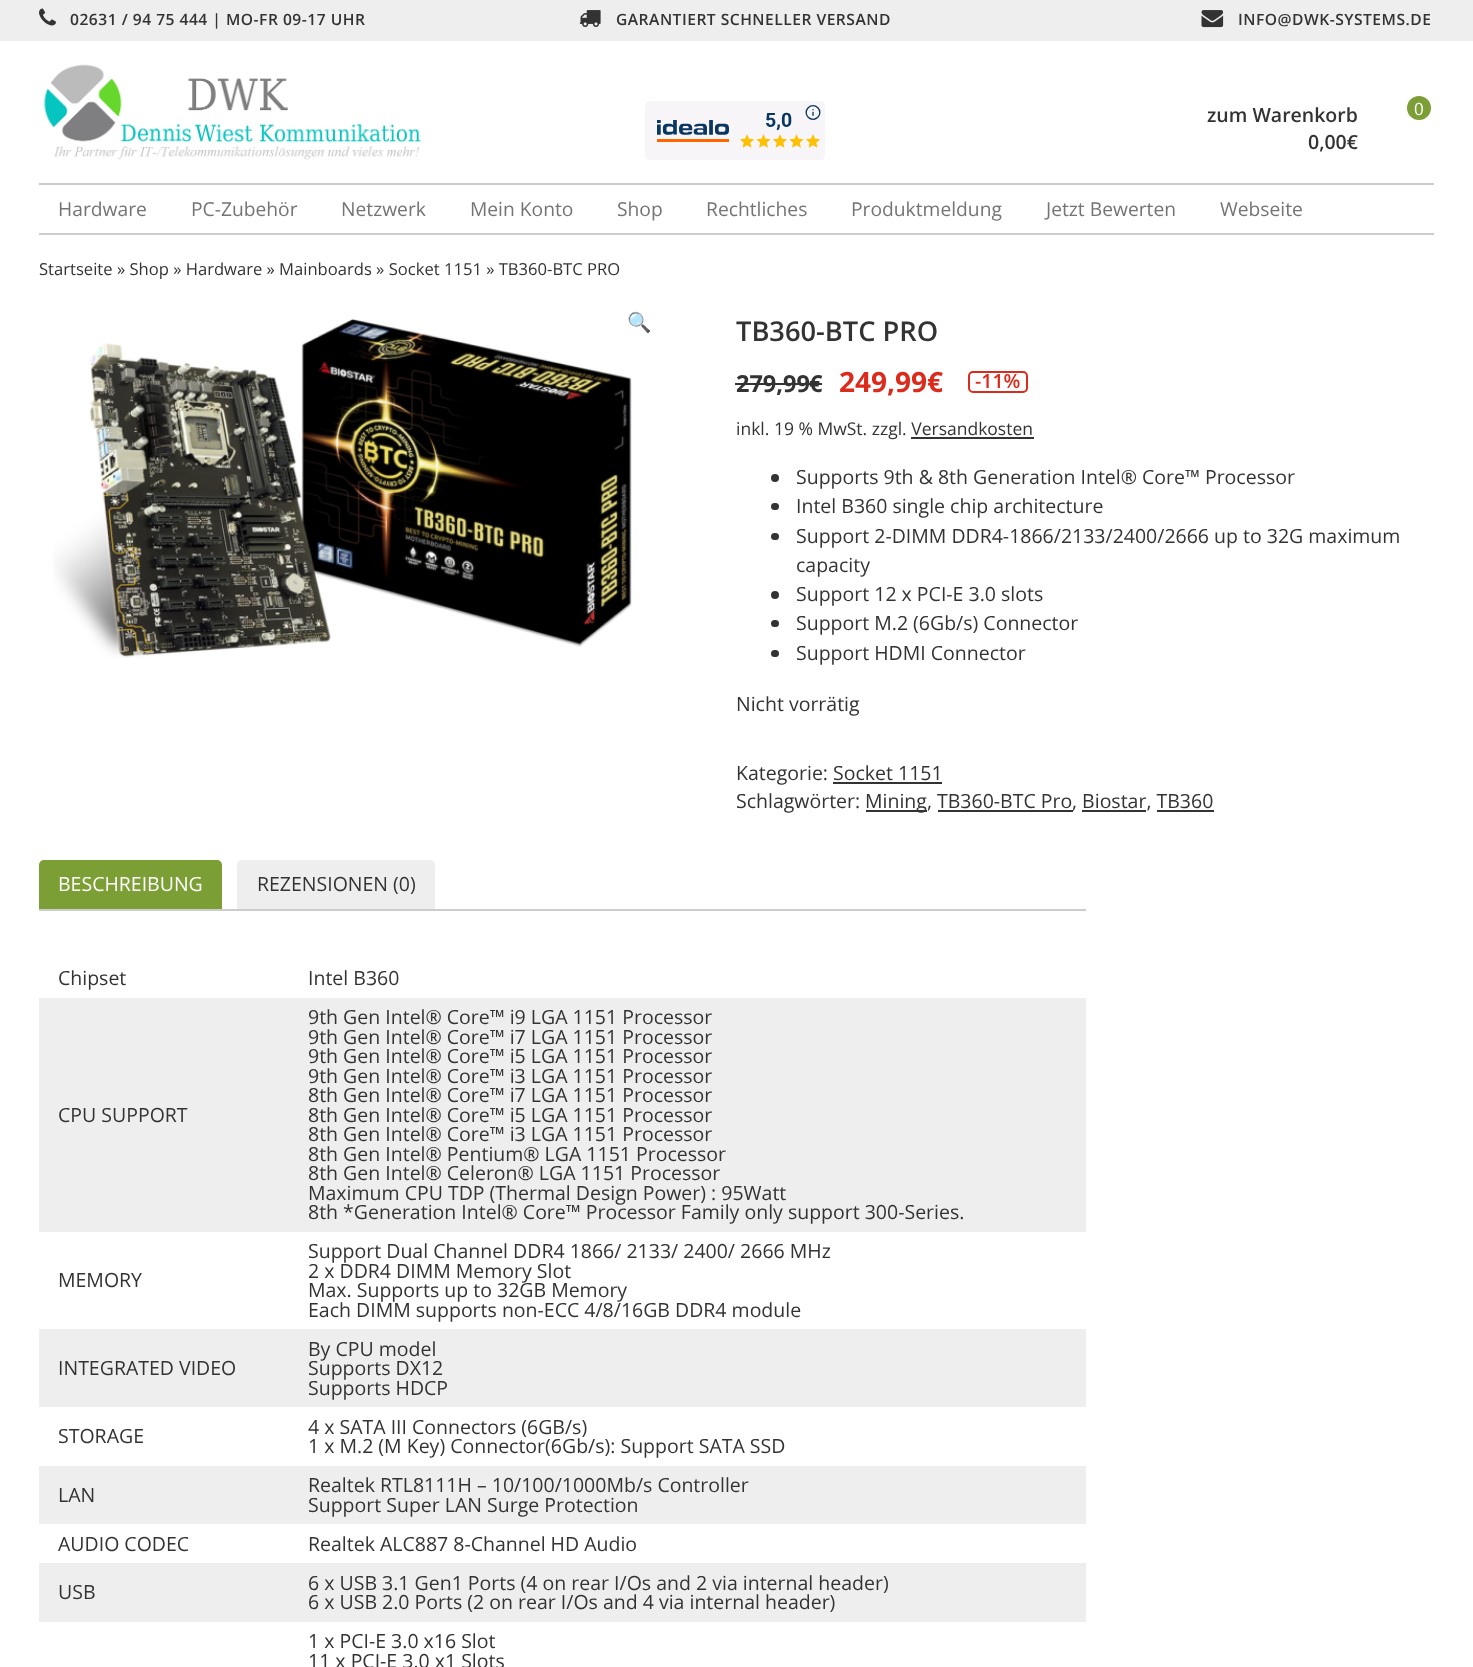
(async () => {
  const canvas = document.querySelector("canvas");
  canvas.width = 1473;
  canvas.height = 1667;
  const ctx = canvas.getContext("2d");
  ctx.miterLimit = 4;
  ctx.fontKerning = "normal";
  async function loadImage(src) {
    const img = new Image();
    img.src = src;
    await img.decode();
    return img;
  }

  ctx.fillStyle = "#ffffff";
  ctx.fillRect(0, 0, 1473, 1667);
  ctx.fillStyle = "#eeeeee";
  ctx.fillRect(0, 0, 1473, 41);
  ctx.drawImage(await loadImage("img/1.png"), 39, 8, 17, 18);
  ctx.drawImage(await loadImage("img/2.png"), 579, 10, 22, 17);
  ctx.drawImage(await loadImage("img/3.png"), 1201, 10, 23, 18);
  ctx.drawImage(await loadImage("img/4.png"), 44, 64, 377, 96);
  ctx.drawImage(await loadImage("img/5.png"), 645, 101, 180, 59);
  ctx.fillStyle = "#7b9f35";
  ctx.beginPath();
  ctx.arc(1419, 108, 12, 0, Math.PI * 2);
  ctx.fill();
  ctx.fillStyle = "#cccccc";
  ctx.fillRect(39, 183, 1395, 2);
  ctx.fillRect(39, 233, 1395, 2);
  ctx.drawImage(await loadImage("img/6.png"), 53, 319, 579, 339);
  ctx.fillStyle = "#333333";
  ctx.fillRect(735, 383, 74, 2);
  ctx.fillRect(809, 383, 13, 2);
  ctx.beginPath();
  ctx.roundRect(969, 372, 58, 20, 4);
  ctx.strokeStyle = "#db2b1d";
  ctx.lineWidth = 2;
  ctx.stroke();
  ctx.fillRect(911, 437, 123, 2);
  ctx.beginPath();
  ctx.arc(775, 478, 4, 0, Math.PI * 2);
  ctx.fill();
  ctx.beginPath();
  ctx.roundRect(771, 503, 8, 7, 3.5);
  ctx.fill();
  ctx.beginPath();
  ctx.roundRect(771, 533, 8, 7, 3.5);
  ctx.fill();
  ctx.beginPath();
  ctx.arc(775, 595, 4, 0, Math.PI * 2);
  ctx.fill();
  ctx.beginPath();
  ctx.roundRect(771, 620, 8, 7, 3.5);
  ctx.fill();
  ctx.beginPath();
  ctx.roundRect(771, 650, 8, 7, 3.5);
  ctx.fill();
  for (const [x, y, w, h, color] of [
    [833, 782, 109, 2, "#333333"],
    [866, 810, 61, 2, "#333333"],
    [938, 810, 135, 2, "#333333"],
    [1082, 810, 64, 2, "#333333"],
    [1157, 810, 57, 2, "#333333"],
    [39, 909, 1047, 2, "#cccccc"],
  ]) {
    ctx.fillStyle = color;
    ctx.fillRect(x, y, w, h);
  }
  ctx.fillStyle = "#7b9f35";
  ctx.beginPath();
  ctx.roundRect(39, 860, 183, 49, [5, 5, 0, 0]);
  ctx.fill();
  ctx.fillStyle = "#eeeeee";
  ctx.beginPath();
  ctx.roundRect(237, 860, 198, 49, [5, 5, 0, 0]);
  ctx.fill();
  for (const [x, y, w, h, color] of [
    [39, 998, 1047, 234, "#eeeeee"],
    [39, 1329, 1047, 78, "#eeeeee"],
    [39, 1466, 1047, 58, "#eeeeee"],
    [39, 1563, 1047, 59, "#eeeeee"],
  ]) {
    ctx.fillStyle = color;
    ctx.fillRect(x, y, w, h);
  }
  ctx.letterSpacing = "0.5px";
  ctx.font = "600 15.6px Open Sans";
  ctx.fillStyle = "#333333";
  for (const [text, x, y] of [
    ["02631 / 94 75 444 | MO-FR 09-17 UHR", 70, 25],
    ["GARANTIERT SCHNELLER VERSAND", 616, 25],
    ["INFO@DWK-SYSTEMS.DE", 1238, 25],
  ]) {
    ctx.fillText(text, x, y);
  }
  ctx.letterSpacing = "0px";
  ctx.font = "600 19.5px Open Sans";
  ctx.fillText("zum Warenkorb", 1207, 122);
  ctx.fillText("0,00€", 1308, 149);
  ctx.font = "17px Open Sans";
  ctx.fillStyle = "#ffffff";
  ctx.fillText("0", 1414, 115);
  ctx.font = "19.25px Open Sans";
  ctx.fillStyle = "#747474";
  for (const [text, x, y] of [
    ["Hardware", 58, 216],
    ["PC-Zubehör", 191, 216],
    ["Netzwerk", 341, 216],
    ["Mein Konto", 470, 216],
    ["Shop", 617, 216],
    ["Rechtliches", 706, 216],
    ["Produktmeldung", 851, 216],
    ["Jetzt Bewerten", 1046, 216],
    ["Webseite", 1220, 216],
  ]) {
    ctx.fillText(text, x, y);
  }
  ctx.font = "16.6px Open Sans";
  ctx.fillStyle = "#333333";
  ctx.fillText("Startseite » Shop » Hardware » Mainboards » Socket 1151 » TB360-BTC PRO", 39, 275);
  ctx.font = "19.5px Noto Color Emoji";
  ctx.fillText("🔍", 627, 329);
  ctx.font = "600 27.25px Open Sans";
  ctx.fillText("TB360-BTC PRO", 736, 341);
  ctx.font = "bold 23.5px Open Sans";
  ctx.fillText("279,99", 736, 392);
  ctx.fillText("€", 809, 392);
  ctx.font = "bold 28px Open Sans";
  ctx.fillStyle = "#db2b1d";
  ctx.fillText("249,99", 839, 392);
  ctx.fillText("€", 927, 392);
  ctx.font = "600 19.5px Open Sans";
  ctx.fillText("-11%", 975, 388);
  ctx.font = "17.5px Open Sans";
  ctx.fillStyle = "#333333";
  ctx.fillText("inkl. 19 % MwSt. zzgl. Versandkosten", 736, 435);
  ctx.font = "19.5px Open Sans";
  for (const [text, x, y] of [
    ["Supports 9th & 8th Generation Intel® Core™ Processor", 796, 484],
    ["Intel B360 single chip architecture", 796, 513],
    ["Support 2-DIMM DDR4-1866/2133/2400/2666 up to 32G maximum", 796, 543],
    ["capacity", 796, 572],
    ["Support 12 x PCI-E 3.0 slots", 796, 601],
    ["Support M.2 (6Gb/s) Connector", 796, 630],
    ["Support HDMI Connector", 796, 660],
    ["Nicht vorrätig", 736, 711],
    ["Kategorie: Socket 1151", 736, 780],
    ["Schlagwörter:", 736, 808],
    ["Mining, TB360-BTC Pro", 865, 808],
    [", Biostar, TB360", 1072, 808],
  ]) {
    ctx.fillText(text, x, y);
  }
  ctx.fillStyle = "#ffffff";
  ctx.fillText("BESCHREIBUNG", 58, 891);
  ctx.fillStyle = "#333333";
  for (const [text, x, y] of [
    ["REZENSIONEN (0)", 257, 891],
    ["Chipset", 58, 985],
    ["Intel B360", 308, 985],
    ["CPU SUPPORT", 58, 1122],
    ["9th Gen Intel® Core™ i9 LGA 1151 Processor", 308, 1024],
    ["9th Gen Intel® Core™ i7 LGA 1151 Processor", 308, 1044],
    ["9th Gen Intel® Core™ i5 LGA 1151 Processor", 308, 1063],
    ["9th Gen Intel® Core™ i3 LGA 1151 Processor", 308, 1083],
    ["8th Gen Intel® Core™ i7 LGA 1151 Processor", 308, 1102],
    ["8th Gen Intel® Core™ i5 LGA 1151 Processor", 308, 1122],
    ["8th Gen Intel® Core™ i3 LGA 1151 Processor", 308, 1141],
    ["8th Gen Intel® Pentium® LGA 1151 Processor", 308, 1161],
    ["8th Gen Intel® Celeron® LGA 1151 Processor", 308, 1180],
    ["Maximum CPU TDP (Thermal Design Power) : 95Watt", 308, 1200],
    ["8th *Generation Intel® Core™ Processor Family only support 300-Series.", 308, 1219],
    ["MEMORY", 58, 1287],
    ["Support Dual Channel DDR4 1866/ 2133/ 2400/ 2666 MHz", 308, 1258],
    ["2 x DDR4 DIMM Memory Slot", 308, 1278],
    ["Max. Supports up to 32GB Memory", 308, 1297],
    ["Each DIMM supports non-ECC 4/8/16GB DDR4 module", 308, 1317],
    ["INTEGRATED VIDEO", 58, 1375],
    ["By CPU model", 308, 1356],
    ["Supports DX12", 308, 1375],
    ["Supports HDCP", 308, 1395],
    ["STORAGE", 58, 1443],
    ["4 x SATA III Connectors (6GB/s)", 308, 1434],
    ["1 x M.2 (M Key) Connector(6Gb/s): Support SATA SSD", 308, 1453],
    ["LAN", 58, 1502],
    ["Realtek RTL8111H – 10/100/1000Mb/s Controller", 308, 1492],
    ["Support Super LAN Surge Protection", 308, 1512],
    ["AUDIO CODEC", 58, 1551],
    ["Realtek ALC887 8-Channel HD Audio", 308, 1551],
    ["USB", 58, 1599],
    ["6 x USB 3.1 Gen1 Ports (4 on rear I/Os and 2 via internal header)", 308, 1590],
    ["6 x USB 2.0 Ports (2 on rear I/Os and 4 via internal header)", 308, 1609],
    ["1 x PCI-E 3.0 x16 Slot", 308, 1648],
    ["11 x PCI-E 3.0 x1 Slots", 308, 1668],
  ]) {
    ctx.fillText(text, x, y);
  }
})();
